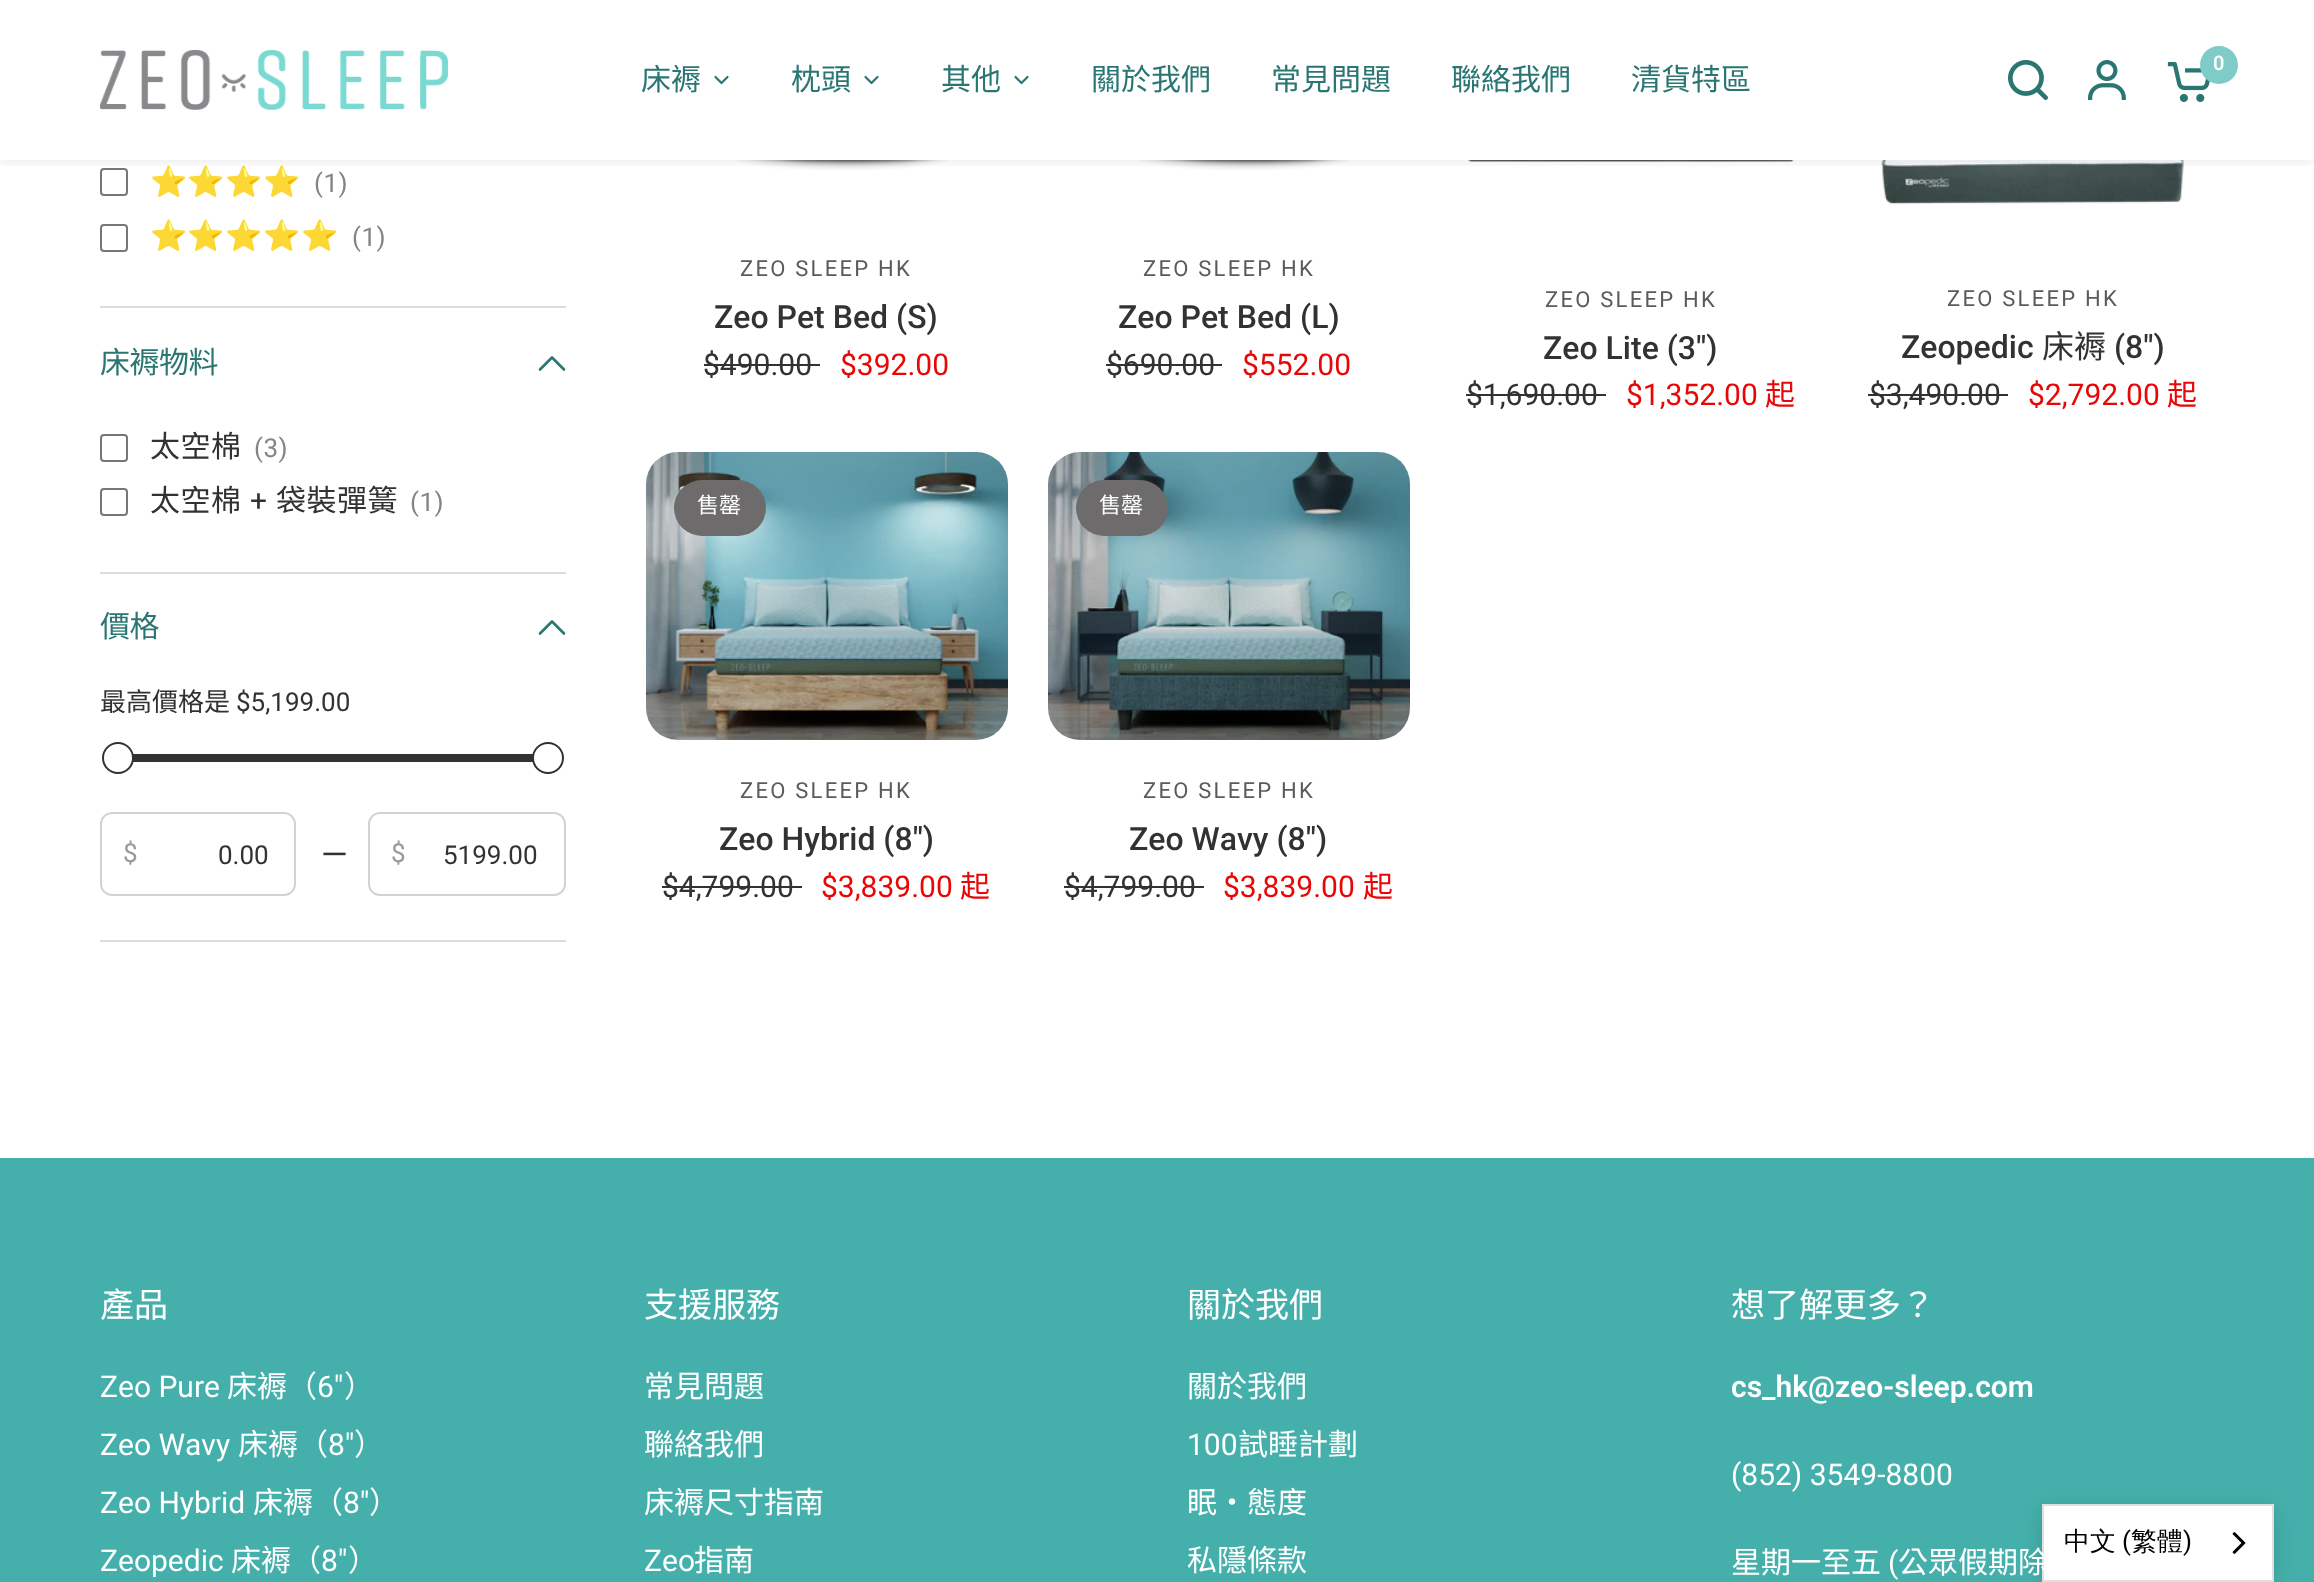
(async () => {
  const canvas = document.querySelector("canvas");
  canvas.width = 2314;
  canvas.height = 1582;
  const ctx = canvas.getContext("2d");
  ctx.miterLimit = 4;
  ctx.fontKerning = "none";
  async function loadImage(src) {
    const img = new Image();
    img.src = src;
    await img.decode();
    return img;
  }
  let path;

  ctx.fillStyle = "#45b0ab";
  ctx.fillRect(0, 0, 2314, 1582);
  ctx.fillStyle = "#ffffff";
  ctx.fillRect(0, 0, 2314, 1158);
  ctx.beginPath();
  ctx.roundRect(101, 169, 26, 26, 3);
  ctx.strokeStyle = "#767676";
  ctx.lineWidth = 2;
  ctx.stroke();
  ctx.drawImage(await loadImage("img/5.png"), 736, 160, 212, 10);
  ctx.drawImage(await loadImage("img/6.png"), 1139, 160, 211, 10);
  ctx.drawImage(await loadImage("img/7.png"), 1468, 160, 326, 2);
  ctx.drawImage(await loadImage("img/8.png"), 1881, 160, 303, 45);
  ctx.save();
  ctx.beginPath();
  ctx.rect(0, 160, 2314, 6);
  ctx.clip();
  ctx.fillStyle = "rgba(0, 0, 0, 0.06)";
  ctx.filter = "blur(5px)";
  ctx.beginPath();
  ctx.rect(0, 4, 2314, 160);
  ctx.fill();
  ctx.filter = "none";
  ctx.restore();
  ctx.drawImage(await loadImage("img/1.png"), 100, 50, 348, 60);
  path = new Path2D("M727.5 77L721.5 83L715.5 77");
  ctx.strokeStyle = "#297672";
  ctx.lineWidth = 2.2;
  ctx.lineCap = "round";
  ctx.lineJoin = "round";
  ctx.stroke(path);
  path = new Path2D("M877.5 77L871.5 83L865.5 77");
  ctx.stroke(path);
  path = new Path2D("M1027.5 77L1021.5 83L1015.5 77");
  ctx.stroke(path);
  ctx.drawImage(await loadImage("img/2.png"), 2008, 60, 40, 40);
  ctx.drawImage(await loadImage("img/3.png"), 2088, 60, 38, 40);
  ctx.drawImage(await loadImage("img/4.png"), 2167, 62, 43, 40);
  ctx.fillStyle = "#7fcbc8";
  ctx.beginPath();
  ctx.arc(2219, 65, 19, 0, Math.PI * 2);
  ctx.fill();
  ctx.fillStyle = "#dadce0";
  ctx.fillRect(100, 306, 466, 2);
  ctx.beginPath();
  ctx.roundRect(101, 225, 26, 26, 3);
  ctx.strokeStyle = "#767676";
  ctx.lineWidth = 2;
  ctx.lineJoin = "miter";
  ctx.stroke();
  ctx.fillRect(100, 572, 466, 2);
  path = new Path2D("M564 369.5L552 357.5L540 369.5");
  ctx.strokeStyle = "#297672";
  ctx.lineWidth = 2.6;
  ctx.lineJoin = "round";
  ctx.stroke(path);
  ctx.beginPath();
  ctx.roundRect(101, 435, 26, 26, 3);
  ctx.strokeStyle = "#767676";
  ctx.lineWidth = 2;
  ctx.lineJoin = "miter";
  ctx.stroke();
  ctx.beginPath();
  ctx.roundRect(101, 489, 26, 26, 3);
  ctx.stroke();
  ctx.fillRect(100, 940, 466, 2);
  path = new Path2D("M564 633.5L552 621.5L540 633.5");
  ctx.strokeStyle = "#297672";
  ctx.lineWidth = 2.6;
  ctx.lineJoin = "round";
  ctx.stroke(path);
  ctx.fillStyle = "#333232";
  ctx.fillRect(133, 754, 400, 8);
  ctx.fillStyle = "#ffffff";
  ctx.beginPath();
  ctx.arc(118, 758, 15, 0, Math.PI * 2);
  ctx.fill();
  ctx.strokeStyle = "#333232";
  ctx.lineWidth = 2;
  ctx.stroke();
  ctx.beginPath();
  ctx.arc(548, 758, 15, 0, Math.PI * 2);
  ctx.fill();
  ctx.stroke();
  ctx.beginPath();
  ctx.roundRect(101, 813, 194, 82, 11);
  ctx.strokeStyle = "#d3d3d3";
  ctx.lineJoin = "miter";
  ctx.stroke();
  ctx.beginPath();
  ctx.roundRect(369, 813, 196, 82, 11);
  ctx.stroke();
  for (const [x, y, w, h, color] of [
    [704, 364, 116, 2, "#333232"],
    [1106, 364, 116, 2, "#333232"],
    [1466, 394, 140, 2, "#333232"],
    [1868, 394, 140, 2, "#333232"],
  ]) {
    ctx.fillStyle = color;
    ctx.fillRect(x, y, w, h);
  }
  ctx.drawImage(await loadImage("img/9.png"), 646, 452, 362, 288);
  ctx.fillStyle = "#6d6b6b";
  ctx.beginPath();
  ctx.roundRect(674, 480, 92, 56, 28);
  ctx.fill();
  ctx.fillStyle = "#333232";
  ctx.fillRect(662, 886, 140, 2);
  ctx.drawImage(await loadImage("img/10.png"), 1048, 452, 362, 288);
  ctx.fillStyle = "#6d6b6b";
  ctx.beginPath();
  ctx.roundRect(1076, 480, 92, 56, 28);
  ctx.fill();
  ctx.fillStyle = "#333232";
  ctx.fillRect(1064, 886, 140, 2);
  ctx.fillStyle = "rgba(0, 0, 0, 0.15)";
  ctx.filter = "blur(10px)";
  ctx.beginPath();
  ctx.roundRect(2042, 1508, 232, 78, 10);
  ctx.fill();
  ctx.filter = "none";
  ctx.fillStyle = "#ffffff";
  ctx.beginPath();
  ctx.rect(2043, 1505, 230, 76);
  ctx.fill();
  ctx.strokeStyle = "#e0e0e0";
  ctx.stroke();
  ctx.drawImage(await loadImage("img/11.png"), 2232, 1532, 14, 22);
  ctx.font = "30px Noto Sans CJK TC";
  ctx.fillStyle = "#297672";
  for (const [text, x, y] of [
    ["床褥", 641, 90],
    ["枕頭", 791, 90],
    ["其他", 941, 90],
    ["關於我們", 1091, 90],
    ["常見問題", 1271, 90],
    ["聯絡我們", 1451, 90],
    ["清貨特區", 1631, 90],
  ]) {
    ctx.fillText(text, x, y);
  }
  ctx.font = "600 20px Roboto";
  ctx.fillStyle = "#ffffff";
  ctx.fillText("0", 2213, 70);
  ctx.letterSpacing = "0.5px";
  ctx.font = "30px Noto Color Emoji";
  ctx.fillStyle = "#333232";
  ctx.fillText("⭐⭐⭐⭐", 150, 192);
  ctx.font = "26px Roboto";
  ctx.fillStyle = "#858484";
  ctx.fillText("(1)", 314, 192);
  ctx.font = "30px Noto Color Emoji";
  ctx.fillStyle = "#333232";
  ctx.fillText("⭐⭐⭐⭐⭐", 150, 246);
  ctx.font = "26px Roboto";
  ctx.fillStyle = "#858484";
  ctx.fillText("(1)", 352, 246);
  ctx.letterSpacing = "-0.5px";
  ctx.font = "30px Noto Sans CJK TC";
  ctx.fillStyle = "#297672";
  ctx.fillText("床褥物料", 100, 373);
  ctx.letterSpacing = "0.5px";
  ctx.fillStyle = "#333232";
  ctx.fillText("太空棉", 150, 457);
  ctx.font = "26px Roboto";
  ctx.fillStyle = "#858484";
  ctx.fillText("(3)", 254, 457);
  ctx.font = "30px Noto Sans CJK TC";
  ctx.fillStyle = "#333232";
  ctx.fillText("太空棉", 150, 511);
  ctx.font = "30px Roboto";
  ctx.fillText("+", 250, 511);
  ctx.font = "30px Noto Sans CJK TC";
  ctx.fillText("袋裝彈簧", 276, 511);
  ctx.font = "26px Roboto";
  ctx.fillStyle = "#858484";
  ctx.fillText("(1)", 410, 511);
  ctx.letterSpacing = "-0.5px";
  ctx.font = "30px Noto Sans CJK TC";
  ctx.fillStyle = "#297672";
  ctx.fillText("價格", 100, 637);
  ctx.letterSpacing = "0px";
  ctx.font = "26px Noto Sans CJK TC";
  ctx.fillStyle = "#333232";
  ctx.fillText("最高價格是", 100, 711);
  ctx.font = "26px Roboto";
  ctx.fillText("$5,199.00", 236, 711);
  ctx.fillStyle = "#999999";
  ctx.fillText("$", 123, 862);
  ctx.fillStyle = "#333232";
  ctx.fillText("0.00", 218, 864);
  ctx.font = "34px Roboto";
  ctx.fillText("—", 321, 866);
  ctx.font = "26px Roboto";
  ctx.fillStyle = "#999999";
  ctx.fillText("$", 391, 862);
  ctx.fillStyle = "#333232";
  ctx.fillText("5199.00", 443, 864);
  ctx.letterSpacing = "2.25px";
  ctx.font = "22px Roboto";
  ctx.fillStyle = "#5c5b5b";
  ctx.fillText("ZEO SLEEP HK", 740, 276);
  ctx.letterSpacing = "0px";
  ctx.font = "500 32px Roboto";
  ctx.fillStyle = "#333232";
  ctx.fillText("Zeo Pet Bed (S)", 714, 328);
  ctx.font = "30px Roboto";
  ctx.fillText("$490.00", 703, 375);
  ctx.fillStyle = "#ea0606";
  ctx.fillText("$392.00", 840, 375);
  ctx.letterSpacing = "2.25px";
  ctx.font = "22px Roboto";
  ctx.fillStyle = "#5c5b5b";
  ctx.fillText("ZEO SLEEP HK", 1143, 276);
  ctx.letterSpacing = "0px";
  ctx.font = "500 32px Roboto";
  ctx.fillStyle = "#333232";
  ctx.fillText("Zeo Pet Bed (L)", 1118, 328);
  ctx.font = "30px Roboto";
  ctx.fillText("$690.00", 1106, 375);
  ctx.fillStyle = "#ea0606";
  ctx.fillText("$552.00", 1242, 375);
  ctx.letterSpacing = "2.25px";
  ctx.font = "22px Roboto";
  ctx.fillStyle = "#5c5b5b";
  ctx.fillText("ZEO SLEEP HK", 1545, 307);
  ctx.letterSpacing = "0px";
  ctx.font = "500 32px Roboto";
  ctx.fillStyle = "#333232";
  ctx.fillText("Zeo Lite (3\")", 1543, 359);
  ctx.font = "30px Roboto";
  ctx.fillText("$1,690.00", 1466, 405);
  ctx.fillStyle = "#ea0606";
  ctx.fillText("$1,352.00", 1626, 405);
  ctx.font = "30px Noto Sans CJK TC";
  ctx.fillText("起", 1765, 405);
  ctx.letterSpacing = "2.25px";
  ctx.font = "22px Roboto";
  ctx.fillStyle = "#5c5b5b";
  ctx.fillText("ZEO SLEEP HK", 1947, 306);
  ctx.letterSpacing = "0px";
  ctx.font = "500 32px Roboto";
  ctx.fillStyle = "#333232";
  ctx.fillText("Zeopedic", 1901, 358);
  ctx.font = "32px Noto Sans CJK TC";
  ctx.fillText("床褥", 2042, 358);
  ctx.font = "500 32px Roboto";
  ctx.fillText("(8\")", 2114, 358);
  ctx.font = "30px Roboto";
  ctx.fillText("$3,490.00", 1869, 405);
  ctx.fillStyle = "#ea0606";
  ctx.fillText("$2,792.00", 2028, 405);
  ctx.font = "30px Noto Sans CJK TC";
  ctx.fillText("起", 2167, 405);
  ctx.font = "22px Noto Sans CJK TC";
  ctx.fillStyle = "#ffffff";
  ctx.fillText("售罄", 697, 513);
  ctx.letterSpacing = "2.25px";
  ctx.font = "22px Roboto";
  ctx.fillStyle = "#5c5b5b";
  ctx.fillText("ZEO SLEEP HK", 740, 798);
  ctx.letterSpacing = "0px";
  ctx.font = "500 32px Roboto";
  ctx.fillStyle = "#333232";
  ctx.fillText("Zeo Hybrid (8\")", 719, 850);
  ctx.font = "30px Roboto";
  ctx.fillText("$4,799.00", 662, 897);
  ctx.fillStyle = "#ea0606";
  ctx.fillText("$3,839.00", 821, 897);
  ctx.font = "30px Noto Sans CJK TC";
  ctx.fillText("起", 960, 897);
  ctx.font = "22px Noto Sans CJK TC";
  ctx.fillStyle = "#ffffff";
  ctx.fillText("售罄", 1099, 513);
  ctx.letterSpacing = "2.25px";
  ctx.font = "22px Roboto";
  ctx.fillStyle = "#5c5b5b";
  ctx.fillText("ZEO SLEEP HK", 1143, 798);
  ctx.letterSpacing = "0px";
  ctx.font = "500 32px Roboto";
  ctx.fillStyle = "#333232";
  ctx.fillText("Zeo Wavy (8\")", 1129, 850);
  ctx.font = "30px Roboto";
  ctx.fillText("$4,799.00", 1064, 897);
  ctx.fillStyle = "#ea0606";
  ctx.fillText("$3,839.00", 1223, 897);
  ctx.font = "30px Noto Sans CJK TC";
  ctx.fillText("起", 1363, 897);
  ctx.font = "34px Noto Sans CJK TC";
  ctx.fillStyle = "#ffffff";
  ctx.fillText("產品", 100, 1317);
  ctx.font = "30px Roboto";
  ctx.fillText("Zeo Pure", 100, 1397);
  ctx.font = "30px Noto Sans CJK TC";
  ctx.fillText("床褥（", 227, 1397);
  ctx.font = "30px Roboto";
  ctx.fillText("6\"", 317, 1397);
  ctx.font = "30px Noto Sans CJK TC";
  ctx.fillText("）", 344, 1397);
  ctx.font = "30px Roboto";
  ctx.fillText("Zeo Wavy", 100, 1455);
  ctx.font = "30px Noto Sans CJK TC";
  ctx.fillText("床褥（", 238, 1455);
  ctx.font = "30px Roboto";
  ctx.fillText("8\"", 328, 1455);
  ctx.font = "30px Noto Sans CJK TC";
  ctx.fillText("）", 354, 1455);
  ctx.font = "30px Roboto";
  ctx.fillText("Zeo Hybrid", 100, 1513);
  ctx.font = "30px Noto Sans CJK TC";
  ctx.fillText("床褥（", 253, 1513);
  ctx.font = "30px Roboto";
  ctx.fillText("8\"", 343, 1513);
  ctx.font = "30px Noto Sans CJK TC";
  ctx.fillText("）", 369, 1513);
  ctx.font = "30px Roboto";
  ctx.fillText("Zeopedic", 100, 1571);
  ctx.font = "30px Noto Sans CJK TC";
  ctx.fillText("床褥（", 231, 1571);
  ctx.font = "30px Roboto";
  ctx.fillText("8\"", 321, 1571);
  ctx.font = "30px Noto Sans CJK TC";
  ctx.fillText("）", 348, 1571);
  ctx.font = "34px Noto Sans CJK TC";
  ctx.fillText("支援服務", 644, 1317);
  ctx.font = "30px Noto Sans CJK TC";
  for (const [text, x, y] of [
    ["常見問題", 644, 1397],
    ["聯絡我們", 644, 1455],
    ["床褥尺寸指南", 644, 1513],
  ]) {
    ctx.fillText(text, x, y);
  }
  ctx.font = "30px Roboto";
  ctx.fillText("Zeo", 644, 1571);
  ctx.font = "30px Noto Sans CJK TC";
  ctx.fillText("指南", 694, 1571);
  ctx.font = "34px Noto Sans CJK TC";
  ctx.fillText("關於我們", 1187, 1317);
  ctx.font = "30px Noto Sans CJK TC";
  ctx.fillText("關於我們", 1187, 1397);
  ctx.font = "30px Roboto";
  ctx.fillText("100", 1187, 1455);
  ctx.font = "30px Noto Sans CJK TC";
  for (const [text, x, y] of [
    ["試睡計劃", 1238, 1455],
    ["眠・態度", 1187, 1513],
    ["私隱條款", 1187, 1571],
  ]) {
    ctx.fillText(text, x, y);
  }
  ctx.font = "34px Noto Sans CJK TC";
  ctx.fillText("想了解更多？", 1731, 1317);
  ctx.font = "600 30px Roboto";
  ctx.fillText("cs_hk@zeo-sleep.com", 1731, 1397);
  ctx.font = "30px Roboto";
  ctx.fillText("(852) 3549-8800", 1731, 1485);
  ctx.font = "30px Noto Sans CJK TC";
  ctx.fillText("星期一至五", 1731, 1573);
  ctx.font = "30px Roboto";
  ctx.fillText("(", 1888, 1573);
  ctx.font = "30px Noto Sans CJK TC";
  ctx.fillText("公眾假期除", 1898, 1573);
  ctx.font = "500 26px WenQuanYi Zen Hei";
  ctx.fillStyle = "#000000";
  ctx.fillText("中文", 2064, 1550);
  ctx.font = "26px Roboto";
  ctx.fillText("(", 2122, 1550);
  ctx.font = "500 26px WenQuanYi Zen Hei";
  ctx.fillText("繁體", 2131, 1550);
  ctx.font = "26px Roboto";
  ctx.fillText(")", 2183, 1550);
})();
